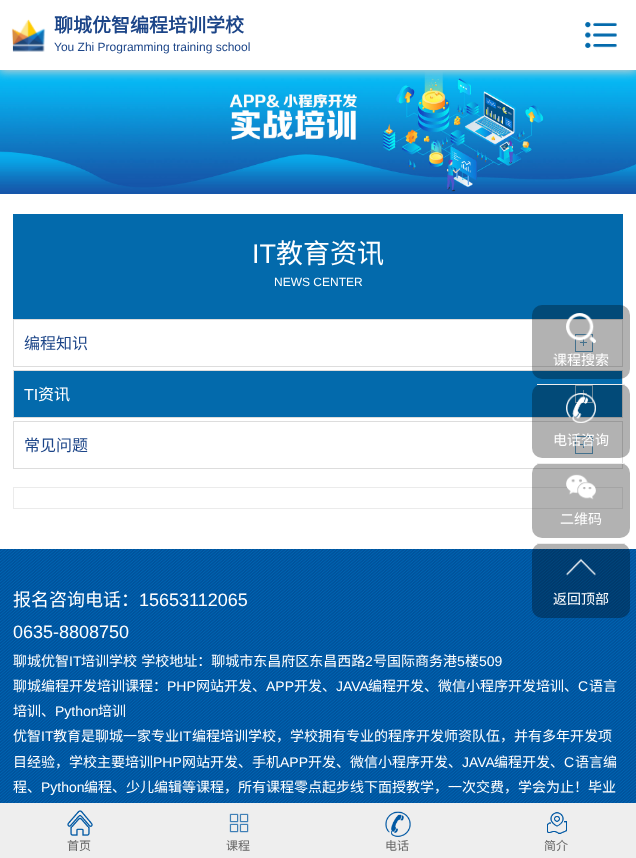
(async () => {
  const canvas = document.querySelector("canvas");
  canvas.width = 636;
  canvas.height = 858;
  const ctx = canvas.getContext("2d");
  ctx.miterLimit = 4;
  ctx.fontKerning = "normal";
  async function loadImage(src) {
    const img = new Image();
    img.src = src;
    await img.decode();
    return img;
  }

  ctx.fillStyle = "#ffffff";
  ctx.fillRect(0, 0, 636, 858);
  ctx.drawImage(await loadImage("img/3.png"), 0, 70, 636, 124);
  ctx.save();
  ctx.beginPath();
  ctx.rect(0, 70, 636, 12);
  ctx.clip();
  ctx.fillStyle = "#cccccc";
  ctx.filter = "blur(5px)";
  ctx.beginPath();
  ctx.rect(-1, 0, 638, 72);
  ctx.fill();
  ctx.filter = "none";
  ctx.restore();
  ctx.drawImage(await loadImage("img/1.png"), 11, 19, 35, 33);
  ctx.drawImage(await loadImage("img/2.png"), 585, 22, 32, 26);
  ctx.fillStyle = "#036aac";
  ctx.fillRect(13, 214, 610, 105);
  ctx.drawImage(await loadImage("img/4.png"), 575, 334, 18, 18);
  ctx.strokeStyle = "#dddddd";
  ctx.strokeRect(13.5, 319.5, 609, 47);
  ctx.fillRect(14, 371, 608, 46);
  ctx.drawImage(await loadImage("img/5.png"), 575, 385, 18, 18);
  ctx.strokeRect(13.5, 370.5, 609, 47);
  ctx.drawImage(await loadImage("img/4.png"), 575, 436, 18, 18);
  ctx.strokeRect(13.5, 421.5, 609, 47);
  ctx.strokeStyle = "#ebebeb";
  ctx.strokeRect(13.5, 487.5, 609, 21);
  ctx.fillStyle = "rgba(0, 0, 0, 0.3)";
  ctx.beginPath();
  ctx.roundRect(532, 305, 98, 74, 10);
  ctx.fill();
  ctx.drawImage(await loadImage("img/6.png"), 566, 313, 30, 30);
  ctx.beginPath();
  ctx.roundRect(532, 384, 98, 74, 10);
  ctx.fill();
  ctx.fillStyle = "#eeeeee";
  ctx.fillRect(537, 384, 88, 1);
  ctx.drawImage(await loadImage("img/7.png"), 566, 393, 30, 30);
  ctx.fillStyle = "rgba(0, 0, 0, 0.3)";
  ctx.beginPath();
  ctx.roundRect(532, 463, 98, 75, 10);
  ctx.fill();
  ctx.fillStyle = "#eeeeee";
  ctx.fillRect(537, 463, 88, 1);
  ctx.drawImage(await loadImage("img/8.png"), 566, 474, 30, 26);
  ctx.drawImage(await loadImage("img/10.png"), 0, 549, 636, 254);
  ctx.fillStyle = "rgba(0, 0, 0, 0.3)";
  ctx.beginPath();
  ctx.roundRect(532, 543, 98, 75, 10);
  ctx.fill();
  ctx.fillStyle = "#eeeeee";
  ctx.fillRect(537, 543, 88, 1);
  ctx.drawImage(await loadImage("img/9.png"), 566, 558, 30, 18);
  ctx.fillRect(0, 803, 636, 55);
  ctx.drawImage(await loadImage("img/11.png"), 67, 810, 26, 26);
  ctx.drawImage(await loadImage("img/12.png"), 229, 813, 20, 20);
  ctx.drawImage(await loadImage("img/13.png"), 385, 811, 26, 26);
  ctx.drawImage(await loadImage("img/14.png"), 547, 812, 20, 22);
  ctx.font = "bold 19px Noto Sans CJK SC";
  ctx.fillStyle = "#1c4588";
  ctx.fillText("聊城优智编程培训学校", 54, 32);
  ctx.font = "12px Liberation Sans";
  ctx.fillText("You Zhi Programming training school", 54, 51);
  ctx.font = "27px Liberation Sans";
  ctx.fillStyle = "#ffffff";
  ctx.fillText("IT", 252, 263);
  ctx.font = "27px Noto Sans CJK SC";
  ctx.fillText("教育资讯", 276, 263);
  ctx.font = "12px Liberation Sans";
  ctx.fillText("NEWS CENTER", 274, 286);
  ctx.font = "16px Noto Sans CJK SC";
  ctx.fillStyle = "#1c4588";
  ctx.fillText("编程知识", 24, 349);
  ctx.font = "16px Liberation Sans";
  ctx.fillStyle = "#ffffff";
  ctx.fillText("TI", 24, 400);
  ctx.font = "16px Noto Sans CJK SC";
  ctx.fillText("资讯", 38, 400);
  ctx.fillStyle = "#1c4588";
  ctx.fillText("常见问题", 24, 451);
  ctx.font = "14px Noto Sans CJK SC";
  ctx.fillStyle = "#ffffff";
  for (const [text, x, y] of [
    ["课程搜索", 553, 365],
    ["电话咨询", 553, 445],
    ["二维码", 560, 524],
    ["返回顶部", 553, 604],
  ]) {
    ctx.fillText(text, x, y);
  }
  ctx.font = "18px Noto Sans CJK SC";
  ctx.fillText("报名咨询电话：", 13, 606);
  ctx.font = "18px Liberation Sans";
  ctx.fillText("15653112065", 139, 606);
  ctx.fillText("0635-8808750", 13, 638);
  ctx.font = "14px Noto Sans CJK SC";
  ctx.fillText("聊城优智", 13, 666);
  ctx.font = "14px Liberation Sans";
  ctx.fillText("IT", 69, 666);
  ctx.wordSpacing = "1px";
  ctx.font = "14px Noto Sans CJK SC";
  ctx.fillText("培训学校 学校地址：聊城市东昌府区东昌西路", 81, 666);
  ctx.wordSpacing = "0px";
  ctx.font = "14px Liberation Sans";
  ctx.fillText("2", 365, 666);
  ctx.font = "14px Noto Sans CJK SC";
  ctx.fillText("号国际商务港", 373, 666);
  ctx.font = "14px Liberation Sans";
  ctx.fillText("5", 457, 666);
  ctx.font = "14px Noto Sans CJK SC";
  ctx.fillText("楼", 465, 666);
  ctx.font = "14px Liberation Sans";
  ctx.fillText("509", 479, 666);
  ctx.font = "14px Noto Sans CJK SC";
  ctx.fillText("聊城编程开发培训课程：", 13, 691);
  ctx.font = "14px Liberation Sans";
  ctx.fillText("PHP", 167, 691);
  ctx.font = "14px Noto Sans CJK SC";
  ctx.fillText("网站开发、", 196, 691);
  ctx.font = "14px Liberation Sans";
  ctx.fillText("APP", 266, 691);
  ctx.font = "14px Noto Sans CJK SC";
  ctx.fillText("开发、", 294, 691);
  ctx.font = "14px Liberation Sans";
  ctx.fillText("JAVA", 336, 691);
  ctx.font = "14px Noto Sans CJK SC";
  ctx.fillText("编程开发、微信小程序开发培训、", 368, 691);
  ctx.font = "14px Liberation Sans";
  ctx.fillText("C", 578, 691);
  ctx.font = "14px Noto Sans CJK SC";
  ctx.fillText("语言", 589, 691);
  ctx.fillText("培训、", 13, 716);
  ctx.font = "14px Liberation Sans";
  ctx.fillText("Python", 55, 716);
  ctx.font = "14px Noto Sans CJK SC";
  ctx.fillText("培训", 98, 716);
  ctx.fillText("优智", 13, 741);
  ctx.font = "14px Liberation Sans";
  ctx.fillText("IT", 41, 741);
  ctx.font = "14px Noto Sans CJK SC";
  ctx.fillText("教育是聊城一家专业", 53, 741);
  ctx.font = "14px Liberation Sans";
  ctx.fillText("IT", 179, 741);
  ctx.font = "14px Noto Sans CJK SC";
  ctx.fillText("编程培训学校，学校拥有专业的程序开发师资队伍，并有多年开发项", 192, 741);
  ctx.fillText("目经验，学校主要培训", 13, 767);
  ctx.font = "14px Liberation Sans";
  ctx.fillText("PHP", 153, 767);
  ctx.font = "14px Noto Sans CJK SC";
  ctx.fillText("网站开发、手机", 182, 767);
  ctx.font = "14px Liberation Sans";
  ctx.fillText("APP", 280, 767);
  ctx.font = "14px Noto Sans CJK SC";
  ctx.fillText("开发、微信小程序开发、", 308, 767);
  ctx.font = "14px Liberation Sans";
  ctx.fillText("JAVA", 462, 767);
  ctx.font = "14px Noto Sans CJK SC";
  ctx.fillText("编程开发、", 494, 767);
  ctx.font = "14px Liberation Sans";
  ctx.fillText("C", 564, 767);
  ctx.font = "14px Noto Sans CJK SC";
  ctx.fillText("语言编", 575, 767);
  ctx.fillText("程、", 13, 792);
  ctx.font = "14px Liberation Sans";
  ctx.fillText("Python", 41, 792);
  ctx.font = "14px Noto Sans CJK SC";
  ctx.fillText("编程、少儿编辑等课程，所有课程零点起步线下面授教学，一次交费，学会为止！毕业", 84, 792);
  ctx.font = "12px Noto Sans CJK SC";
  ctx.fillStyle = "#666666";
  for (const [text, x, y] of [
    ["首页", 67, 850],
    ["课程", 226, 850],
    ["电话", 385, 850],
    ["简介", 544, 850],
  ]) {
    ctx.fillText(text, x, y);
  }
})();
